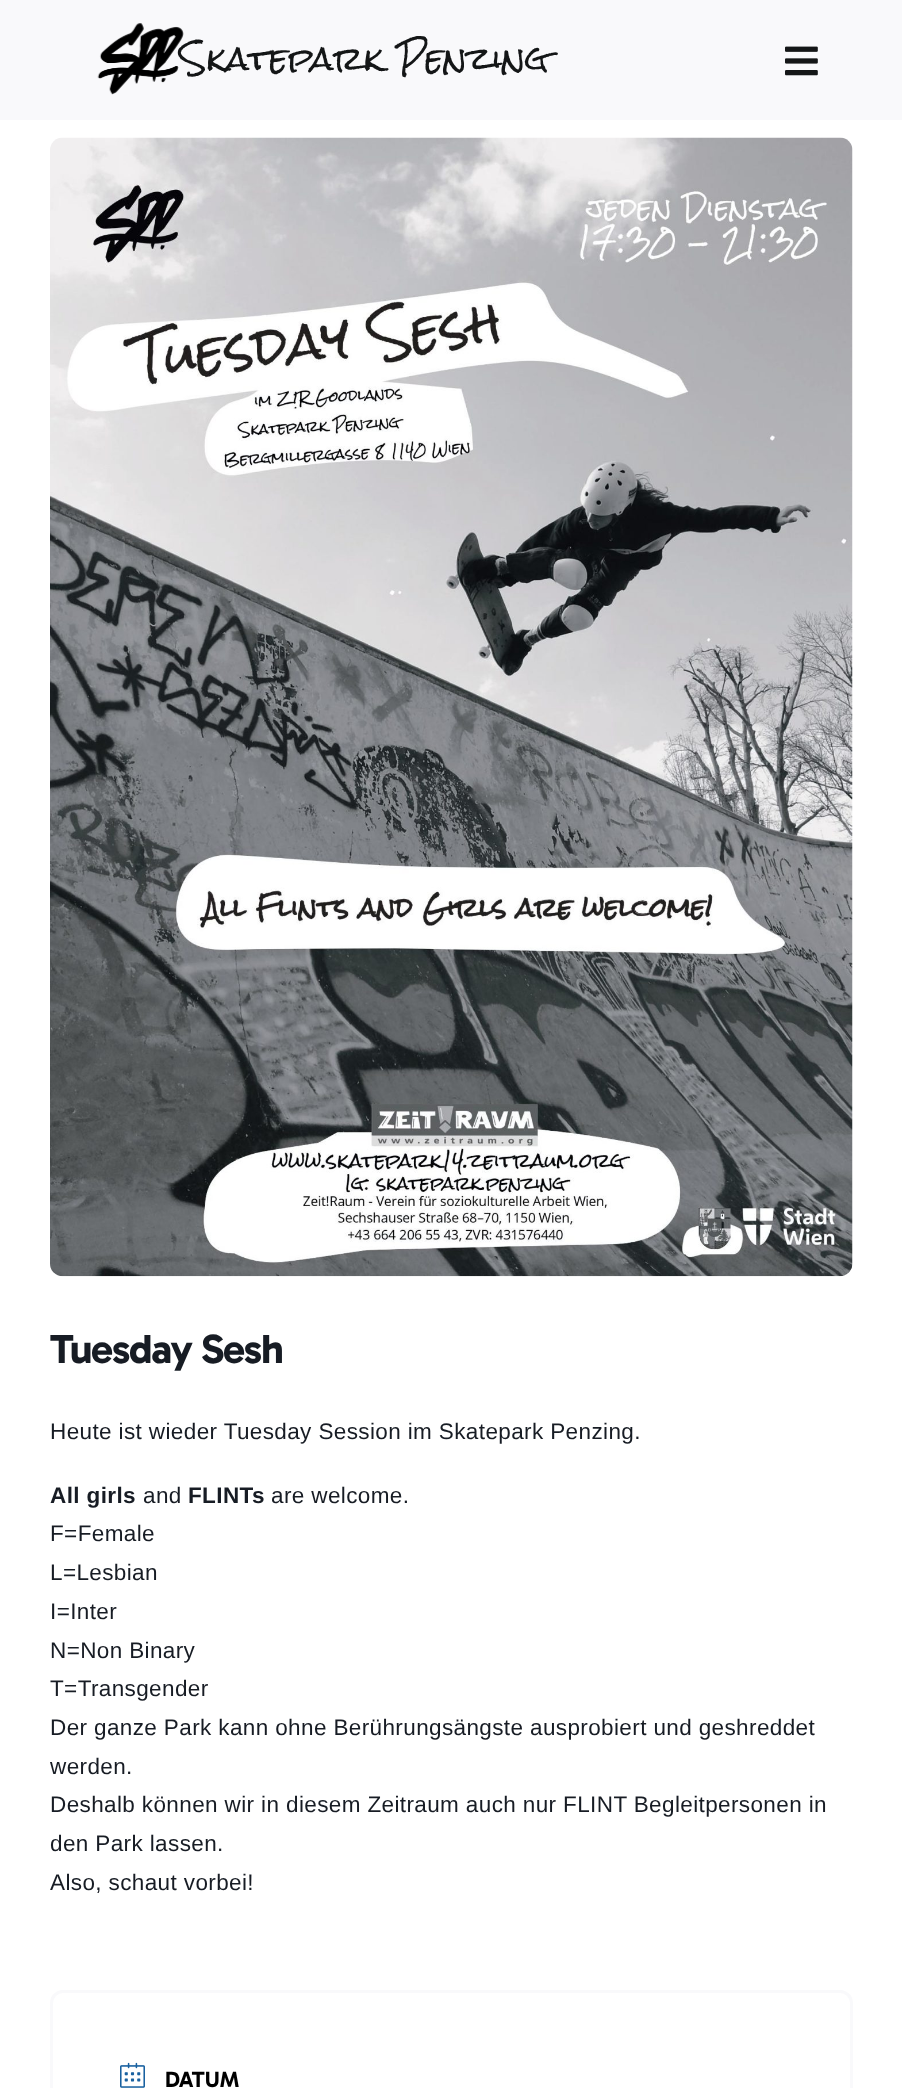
(async () => {
  const canvas = document.querySelector("canvas");
  canvas.width = 902;
  canvas.height = 2088;
  const ctx = canvas.getContext("2d");
  ctx.miterLimit = 4;
  ctx.fontKerning = "normal";
  async function loadImage(src) {
    const img = new Image();
    img.src = src;
    await img.decode();
    return img;
  }

  ctx.fillStyle = "#ffffff";
  ctx.fillRect(0, 0, 902, 2088);
  ctx.fillStyle = "#f9f9fb";
  ctx.fillRect(0, 0, 902, 120);
  ctx.drawImage(await loadImage("img/2.png"), 785, 46, 33, 30);
  ctx.drawImage(await loadImage("img/3.png"), 50, 137, 803, 1140);
  ctx.beginPath();
  ctx.roundRect(51.5, 1991.5, 800, 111, 11.5);
  ctx.strokeStyle = "#f9f9fb";
  ctx.lineWidth = 3;
  ctx.stroke();
  ctx.drawImage(await loadImage("img/4.png"), 120, 2062, 25, 26);
  ctx.letterSpacing = "0.38px";
  ctx.font = "31.25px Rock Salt";
  ctx.fillStyle = "#141617";
  ctx.fillText("Skatepark Penzing", 180, 71);
  ctx.drawImage(await loadImage("img/1.png"), 97, 23, 87, 72);
  ctx.letterSpacing = "-1.25px";
  ctx.font = "bold 41.25px Gabarito";
  ctx.fillStyle = "#171c24";
  ctx.fillText("Tuesday Sesh", 50, 1363);
  ctx.letterSpacing = "0.38px";
  ctx.font = "22.5px Liberation Sans";
  ctx.fillText("Heute ist wieder Tuesday Session im Skatepark Penzing.", 50, 1439);
  ctx.font = "bold 22.5px Liberation Sans";
  ctx.fillText("All girls", 50, 1503);
  ctx.font = "22.5px Liberation Sans";
  ctx.fillText("and", 143, 1503);
  ctx.font = "bold 22.5px Liberation Sans";
  ctx.fillText("FLINTs", 188, 1503);
  ctx.font = "22.5px Liberation Sans";
  for (const [text, x, y] of [
    ["are welcome.", 271, 1503],
    ["F=Female", 50, 1541],
    ["L=Lesbian", 50, 1580],
    ["I=Inter", 50, 1619],
    ["N=Non Binary", 50, 1658],
    ["T=Transgender", 50, 1696],
    ["Der ganze Park kann ohne Berührungsängste ausprobiert und geshreddet", 50, 1735],
    ["werden.", 50, 1774],
    ["Deshalb können wir in diesem Zeitraum auch nur FLINT Begleitpersonen in", 50, 1812],
    ["den Park lassen.", 50, 1851],
    ["Also, schaut vorbei!", 50, 1890],
  ]) {
    ctx.fillText(text, x, y);
  }
  ctx.letterSpacing = "0px";
  ctx.font = "bold 22.5px Gabarito";
  ctx.fillStyle = "#000000";
  ctx.fillText("DATUM", 165, 2087);
})();
